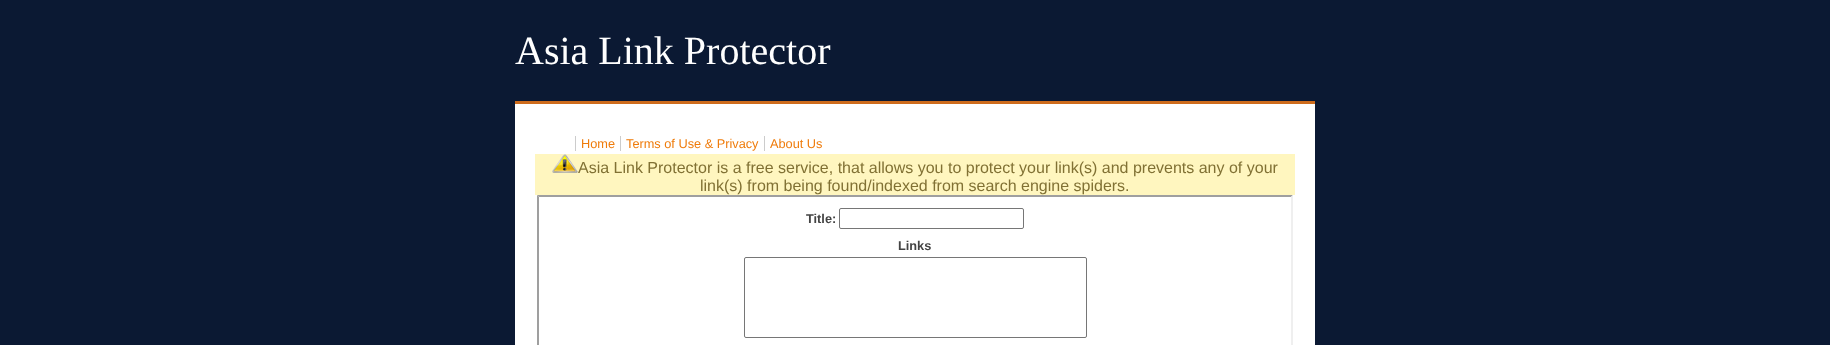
(async () => {
  const canvas = document.querySelector("canvas");
  canvas.width = 1830;
  canvas.height = 345;
  const ctx = canvas.getContext("2d");
  ctx.miterLimit = 4;
  ctx.fontKerning = "normal";
  async function loadImage(src) {
    const img = new Image();
    img.src = src;
    await img.decode();
    return img;
  }
  let path;

  ctx.fillStyle = "#0b1933";
  ctx.fillRect(0, 0, 1830, 345);
  for (const [x, y, w, h, color] of [
    [515, 104, 800, 241, "#ffffff"],
    [515, 101, 800, 3, "#ce6c1c"],
    [575, 136, 1, 15, "#cccccc"],
    [620, 136, 1, 15, "#cccccc"],
    [764, 136, 1, 15, "#cccccc"],
    [535, 154, 760, 41, "#fff6bf"],
  ]) {
    ctx.fillStyle = color;
    ctx.fillRect(x, y, w, h);
  }
  ctx.drawImage(await loadImage("img/1.png"), 552, 154, 26, 19);
  ctx.fillStyle = "#9f9f9f";
  path = new Path2D("M537 195H1293L1291 197H539Z");
  ctx.fill(path);
  ctx.fillStyle = "#efefef";
  path = new Path2D("M1293 195V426L1291 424V197Z");
  ctx.fill(path);
  ctx.fillStyle = "#9f9f9f";
  path = new Path2D("M537 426V195L539 197V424Z");
  ctx.fill(path);
  ctx.beginPath();
  ctx.roundRect(839.5, 208.5, 184, 20, 1.5);
  ctx.strokeStyle = "#767676";
  ctx.stroke();
  ctx.beginPath();
  ctx.roundRect(744.5, 257.5, 342, 80, 1.5);
  ctx.stroke();
  ctx.font = "40px Liberation Serif";
  ctx.fillStyle = "#ffffff";
  ctx.fillText("Asia Link Protector", 515, 64);
  ctx.font = "12.75px Liberation Sans";
  ctx.fillStyle = "#ef7b0a";
  for (const [text, x, y] of [
    ["Home", 581, 148],
    ["Terms of Use & Privacy", 626, 148],
    ["About Us", 770, 148],
  ]) {
    ctx.fillText(text, x, y);
  }
  ctx.font = "16px Liberation Sans";
  ctx.fillStyle = "#817134";
  ctx.fillText("Asia Link Protector is a free service, that allows you to protect your link(s) and prevents any of your", 578, 173);
  ctx.fillText("link(s) from being found/indexed from search engine spiders.", 700, 191);
  ctx.font = "bold 12.75px Liberation Sans";
  ctx.fillStyle = "#444444";
  ctx.fillText("Title:", 806, 223);
  ctx.fillText("Links", 898, 250);
})();
